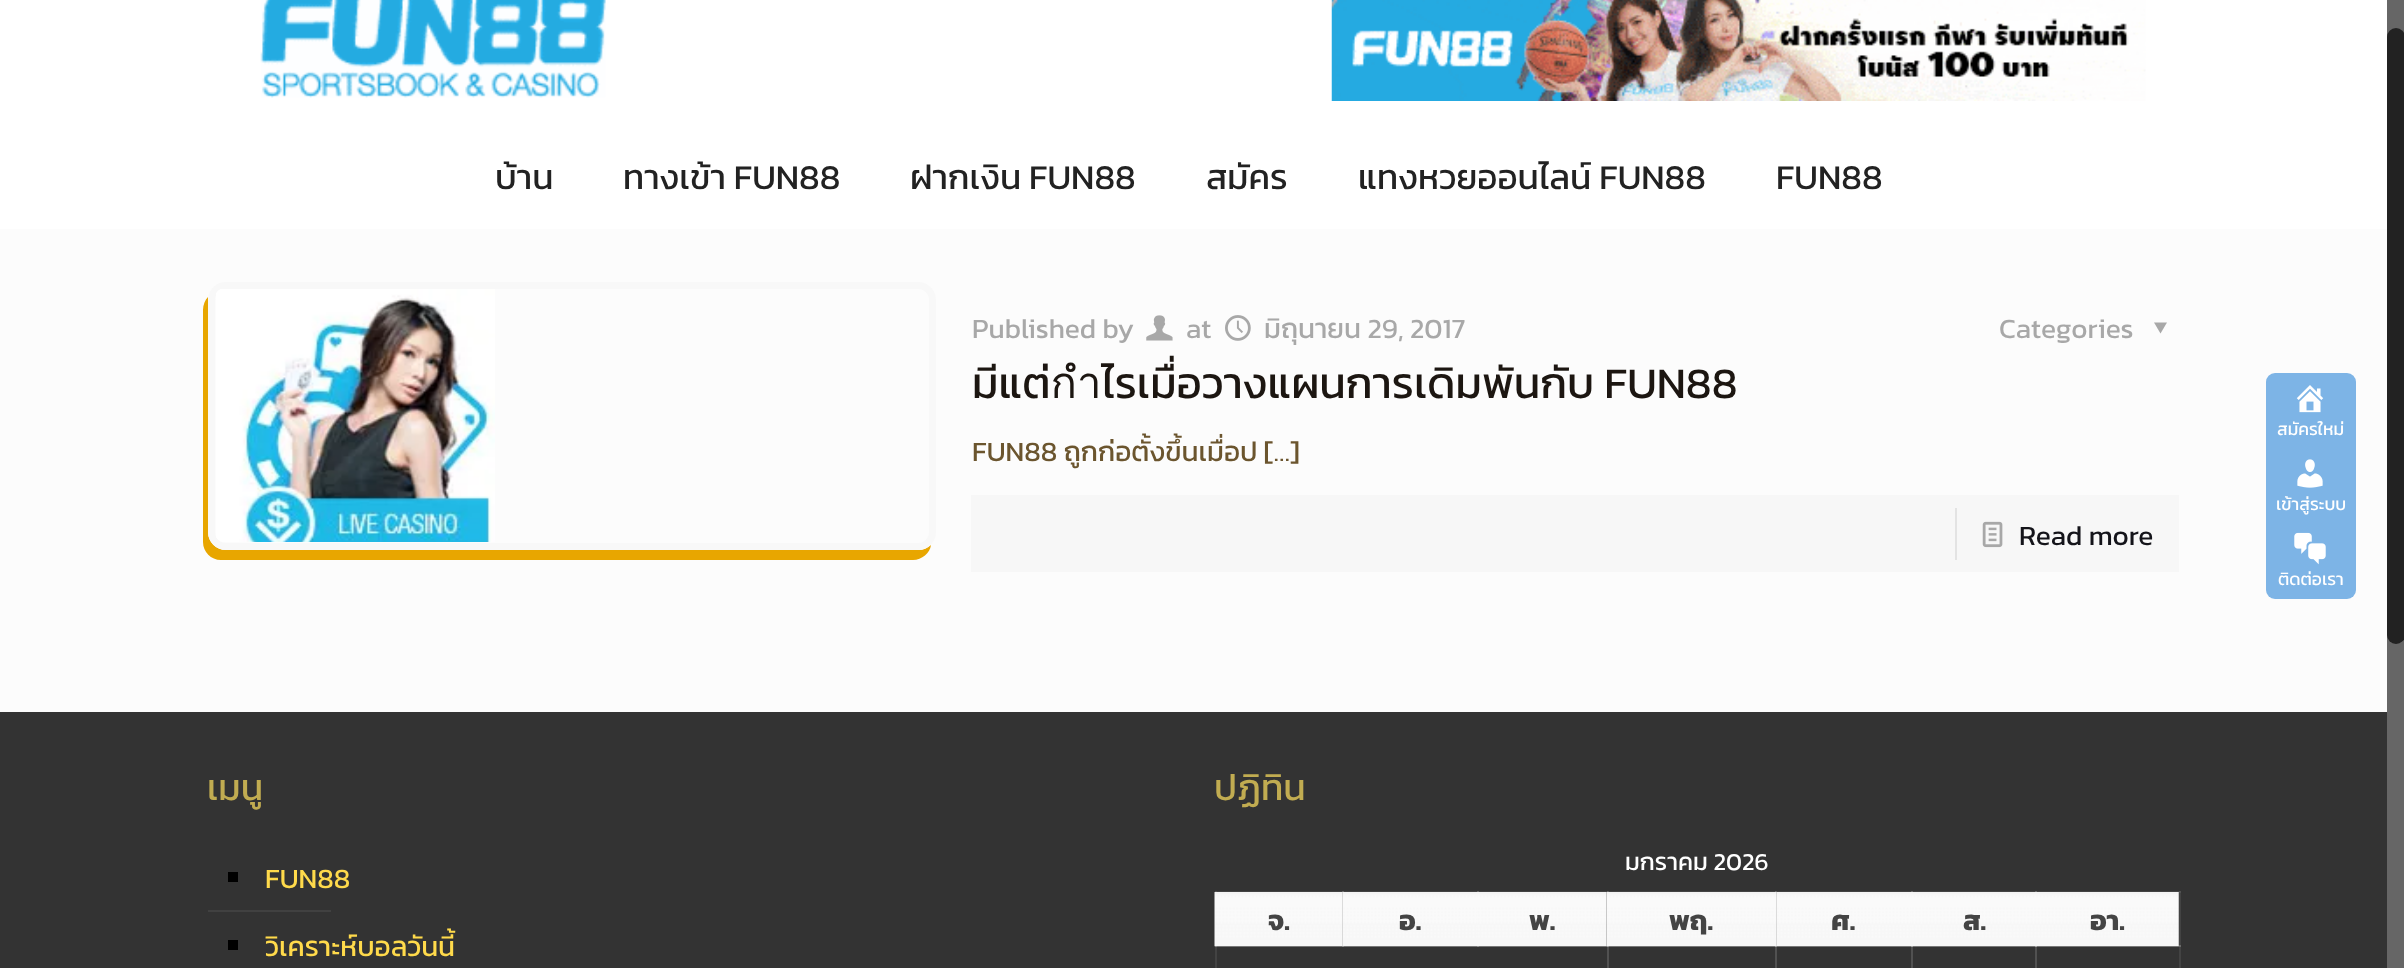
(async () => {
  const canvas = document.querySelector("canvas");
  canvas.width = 2404;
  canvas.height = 968;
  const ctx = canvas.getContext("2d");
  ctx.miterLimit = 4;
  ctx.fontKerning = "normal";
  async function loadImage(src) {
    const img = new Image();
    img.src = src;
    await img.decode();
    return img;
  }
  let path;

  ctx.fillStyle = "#fcfcfc";
  ctx.fillRect(0, 0, 2404, 968);
  ctx.fillStyle = "#ffffff";
  ctx.fillRect(0, 0, 2387, 229);
  ctx.drawImage(await loadImage("img/1.png"), 260, 0, 346, 98);
  ctx.drawImage(await loadImage("img/2.png"), 1331, 0, 815, 101);
  ctx.fillStyle = "#e8a600";
  path = new Path2D("M208 297C205 300 203 305 203 310V542C203 552 211 560 221 560H913C922 560 930 553 931 545C928 548 923 550 919 550H226C216 550 208 542 208 532Z");
  ctx.fill(path);
  ctx.beginPath();
  ctx.roundRect(211.5, 285.5, 721, 261, 14.5);
  ctx.strokeStyle = "#f8f8f8";
  ctx.lineWidth = 7;
  ctx.stroke();
  ctx.drawImage(await loadImage("img/3.png"), 216, 289, 279, 253);
  ctx.drawImage(await loadImage("img/4.png"), 1146, 315, 27, 26);
  ctx.drawImage(await loadImage("img/5.png"), 1225, 315, 26, 26);
  ctx.fillStyle = "#a8a8a8";
  path = new Path2D("M2167 322.5L2160.5 333.5L2154 322.5Z");
  ctx.fill(path);
  ctx.fillStyle = "#f7f7f7";
  ctx.fillRect(971, 495, 1208, 77);
  ctx.fillStyle = "#e3e3e3";
  ctx.fillRect(1955, 508, 2, 52);
  ctx.drawImage(await loadImage("img/6.png"), 1982, 521, 21, 27);
  for (const [x, y, w, h, color] of [
    [0, 712, 2387, 256, "#333333"],
    [228, 872, 10, 10, "#000000"],
    [208, 910, 123, 2, "#414141"],
    [228, 940, 10, 10, "#000000"],
  ]) {
    ctx.fillStyle = color;
    ctx.fillRect(x, y, w, h);
  }
  ctx.drawImage(await loadImage("img/7.png"), 1214, 892, 129, 55);
  ctx.drawImage(await loadImage("img/8.png"), 1342, 892, 135, 55);
  ctx.drawImage(await loadImage("img/9.png"), 1477, 892, 130, 55);
  ctx.drawImage(await loadImage("img/10.png"), 1606, 892, 171, 55);
  ctx.drawImage(await loadImage("img/8.png"), 1776, 892, 135, 55);
  ctx.drawImage(await loadImage("img/11.png"), 1911, 892, 126, 54);
  ctx.drawImage(await loadImage("img/12.png"), 2037, 892, 142, 55);
  for (const [x, y, w, h, color] of [
    [2035, 891, 146, 2, "rgba(255, 255, 255, 0.08)"],
    [1777, 946, 401, 1, "#606060"],
    [2035, 945, 146, 2, "rgba(255, 255, 255, 0.08)"],
    [2179, 945, 2, 23, "rgba(255, 255, 255, 0.08)"],
    [2179, 891, 2, 56, "rgba(255, 255, 255, 0.08)"],
    [2035, 945, 2, 23, "rgba(255, 255, 255, 0.08)"],
    [1911, 946, 126, 1, "rgba(255, 255, 255, 0.08)"],
    [2035, 945, 2, 23, "rgba(255, 255, 255, 0.08)"],
    [2035, 945, 146, 2, "rgba(255, 255, 255, 0.08)"],
    [2035, 891, 2, 56, "rgba(255, 255, 255, 0.08)"],
    [1911, 891, 126, 1, "rgba(255, 255, 255, 0.08)"],
    [2035, 891, 2, 56, "rgba(255, 255, 255, 0.08)"],
    [1607, 946, 169, 1, "#606060"],
    [1911, 945, 2, 23, "rgba(255, 255, 255, 0.08)"],
    [1775, 945, 138, 2, "rgba(255, 255, 255, 0.08)"],
    [1911, 945, 2, 23, "rgba(255, 255, 255, 0.08)"],
    [1911, 946, 126, 1, "rgba(255, 255, 255, 0.08)"],
    [1911, 891, 2, 56, "rgba(255, 255, 255, 0.08)"],
    [1775, 891, 138, 2, "rgba(255, 255, 255, 0.08)"],
    [1911, 891, 2, 56, "rgba(255, 255, 255, 0.08)"],
    [1775, 945, 2, 23, "rgba(255, 255, 255, 0.08)"],
    [1607, 946, 169, 1, "rgba(255, 255, 255, 0.08)"],
    [1775, 945, 2, 23, "rgba(255, 255, 255, 0.08)"],
    [1775, 945, 138, 2, "rgba(255, 255, 255, 0.08)"],
    [1775, 891, 2, 56, "rgba(255, 255, 255, 0.08)"],
    [1607, 891, 169, 1, "rgba(255, 255, 255, 0.08)"],
    [1775, 891, 2, 56, "rgba(255, 255, 255, 0.08)"],
    [1215, 946, 391, 1, "rgba(0, 0, 0, 0.04)"],
    [1607, 945, 2, 23, "rgba(255, 255, 255, 0.08)"],
    [1215, 945, 393, 2, "rgba(255, 255, 255, 0.08)"],
    [1607, 945, 2, 23, "rgba(255, 255, 255, 0.08)"],
    [1607, 946, 169, 1, "rgba(255, 255, 255, 0.08)"],
    [1607, 891, 2, 56, "rgba(255, 255, 255, 0.08)"],
    [1477, 891, 131, 2, "rgba(255, 255, 255, 0.08)"],
    [1607, 891, 2, 56, "rgba(255, 255, 255, 0.08)"],
    [1477, 945, 131, 2, "rgba(255, 255, 255, 0.08)"],
    [1477, 891, 2, 56, "rgba(255, 255, 255, 0.08)"],
    [1342, 891, 137, 2, "rgba(255, 255, 255, 0.08)"],
    [1477, 891, 2, 56, "rgba(255, 255, 255, 0.08)"],
    [1342, 945, 137, 2, "rgba(255, 255, 255, 0.08)"],
    [1342, 891, 2, 56, "rgba(255, 255, 255, 0.08)"],
    [1215, 891, 129, 2, "rgba(255, 255, 255, 0.08)"],
    [1342, 891, 2, 56, "rgba(255, 255, 255, 0.08)"],
    [1215, 945, 2, 23, "rgba(255, 255, 255, 0.08)"],
    [1215, 946, 129, 1, "rgba(255, 255, 255, 0.08)"],
    [1215, 891, 2, 56, "rgba(255, 255, 255, 0.08)"],
  ]) {
    ctx.fillStyle = color;
    ctx.fillRect(x, y, w, h);
  }
  ctx.fillStyle = "#7db4e6";
  ctx.beginPath();
  ctx.roundRect(2266, 373, 90, 226, 9);
  ctx.fill();
  ctx.drawImage(await loadImage("img/13.png"), 2296, 385, 28, 28);
  ctx.drawImage(await loadImage("img/14.png"), 2297, 459, 26, 29);
  ctx.drawImage(await loadImage("img/15.png"), 2294, 532, 32, 33);
  ctx.fillStyle = "#666666";
  ctx.fillRect(2387, 0, 17, 968);
  ctx.fillStyle = "#222222";
  ctx.beginPath();
  ctx.roundRect(2387, 28, 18, 616, 9);
  ctx.fill();
  ctx.font = "35px Kanit";
  for (const [text, x, y] of [
    ["บ้าน", 495, 189],
    ["ทางเข้า FUN88", 623, 189],
    ["ฝากเงิน FUN88", 910, 189],
    ["สมัคร", 1206, 189],
    ["แทงหวยออนไลน์ FUN88", 1358, 189],
    ["FUN88", 1776, 189],
  ]) {
    ctx.fillText(text, x, y);
  }
  ctx.font = "28px Kanit";
  ctx.fillStyle = "#a8a8a8";
  for (const [text, x, y] of [
    ["Published by", 972, 338],
    ["at", 1186, 338],
    ["มิถุนายน 29, 2017", 1264, 338],
    ["Categories", 1999, 338],
  ]) {
    ctx.fillText(text, x, y);
  }
  ctx.font = "43.75px Kanit";
  ctx.fillStyle = "#1c1611";
  ctx.fillText("มีแต่กำไรเมื่อวางแผนการเดิมพันกับ FUN88", 972, 398);
  ctx.font = "28px Kanit";
  ctx.fillStyle = "#6b552e";
  ctx.fillText("FUN88 ถูกก่อตั้งขึ้นเมื่อป […]", 972, 461);
  ctx.fillStyle = "#14141a";
  ctx.fillText("Read more", 2019, 545);
  ctx.font = "37px Kanit";
  ctx.fillStyle = "#c1ac51";
  ctx.fillText("เมนู", 207, 800);
  ctx.font = "28px Kanit";
  ctx.fillStyle = "#ffda4b";
  ctx.fillText("FUN88", 265, 888);
  ctx.fillText("วิเคราะห์บอลวันนี้", 265, 956);
  ctx.font = "37px Kanit";
  ctx.fillStyle = "#c1ac51";
  ctx.fillText("ปฏิทิน", 1214, 800);
  ctx.font = "24.5px Kanit";
  ctx.fillStyle = "#ffffff";
  ctx.fillText("มกราคม 2026", 1625, 870);
  ctx.font = "bold 28px Kanit";
  ctx.fillStyle = "#444444";
  for (const [text, x, y] of [
    ["จ.", 1268, 930],
    ["อ.", 1399, 930],
    ["พ.", 1529, 930],
    ["พฤ.", 1669, 930],
    ["ศ.", 1831, 930],
    ["ส.", 1963, 930],
    ["อา.", 2090, 930],
  ]) {
    ctx.fillText(text, x, y);
  }
  ctx.font = "17.5px Kanit";
  ctx.fillStyle = "#ffffff";
  for (const [text, x, y] of [
    ["สมัครใหม่", 2277, 435],
    ["เข้าสู่ระบบ", 2276, 510],
    ["ติดต่อเรา", 2278, 585],
  ]) {
    ctx.fillText(text, x, y);
  }
})();
